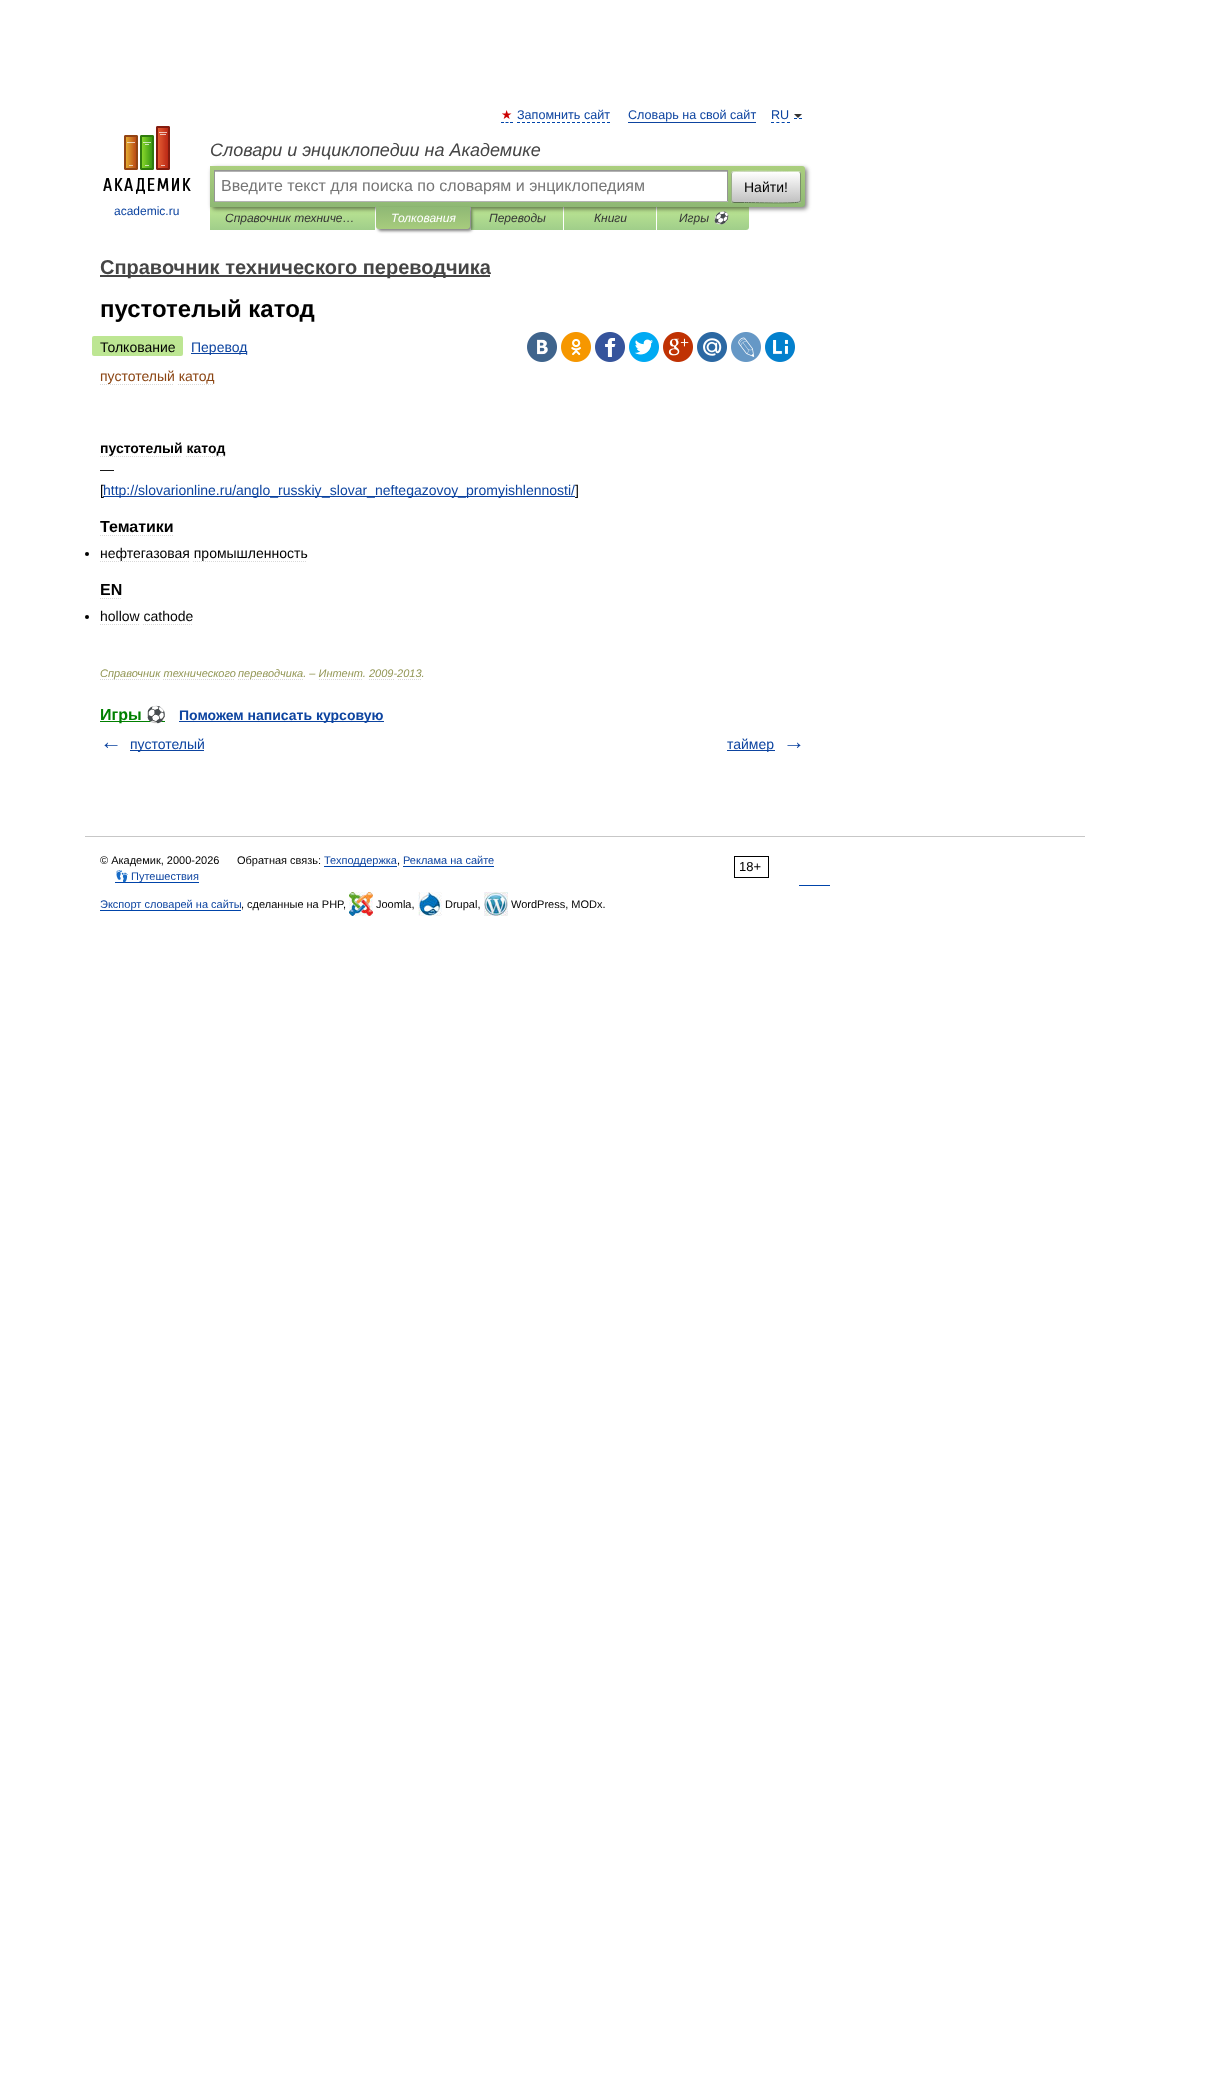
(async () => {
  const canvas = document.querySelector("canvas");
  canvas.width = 1219;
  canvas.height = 2099;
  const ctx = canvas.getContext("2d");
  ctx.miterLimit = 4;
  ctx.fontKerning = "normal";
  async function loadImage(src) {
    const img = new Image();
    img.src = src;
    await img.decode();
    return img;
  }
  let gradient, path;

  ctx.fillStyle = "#ffffff";
  ctx.fillRect(0, 0, 1219, 2099);
  path = new Path2D("M501 122.5H504M505.5 122.5H508.5M510 122.5H513");
  ctx.strokeStyle = "#0044aa";
  ctx.stroke(path);
  path = new Path2D("M517 122.5H610");
  ctx.setLineDash([3, 2]);
  ctx.stroke(path);
  ctx.fillStyle = "#0d44a0";
  ctx.fillRect(628, 122, 128, 1);
  path = new Path2D("M771 122.5H790");
  ctx.setLineDash([3, 2.33]);
  ctx.stroke(path);
  path = new Path2D("M794 118.5H797M799 118.5H802");
  ctx.setLineDash([]);
  ctx.stroke(path);
  ctx.fillStyle = "#333333";
  path = new Path2D("M794 114H802L798 118Z");
  ctx.fill(path);
  gradient = ctx.createLinearGradient(293, 207, 293, 230);
  gradient.addColorStop(0, "#bde693");
  gradient.addColorStop(1, "#a0ce8a");
  ctx.fillStyle = gradient;
  ctx.fillRect(210, 207, 165, 23);
  gradient = ctx.createLinearGradient(517, 207, 517, 230);
  gradient.addColorStop(0, "#bde693");
  gradient.addColorStop(1, "#a0ce8a");
  ctx.fillStyle = gradient;
  ctx.fillRect(471, 207, 92, 23);
  gradient = ctx.createLinearGradient(610, 207, 610, 230);
  gradient.addColorStop(0, "#bde693");
  gradient.addColorStop(1, "#a0ce8a");
  ctx.fillStyle = gradient;
  ctx.fillRect(564, 207, 92, 23);
  gradient = ctx.createLinearGradient(703, 207, 703, 230);
  gradient.addColorStop(0, "#bde693");
  gradient.addColorStop(1, "#a0ce8a");
  ctx.fillStyle = gradient;
  ctx.beginPath();
  ctx.roundRect(657, 207, 92, 23, [0, 0, 3, 0]);
  ctx.fill();
  ctx.fillStyle = "rgba(0, 0, 0, 0.5)";
  ctx.filter = "blur(2px)";
  ctx.beginPath();
  ctx.roundRect(212, 168, 595, 41, 3);
  ctx.fill();
  ctx.filter = "none";
  gradient = ctx.createLinearGradient(508, 166, 508, 207);
  gradient.addColorStop(0, "#abcf7e");
  gradient.addColorStop(1, "#8eb874");
  ctx.fillStyle = gradient;
  ctx.beginPath();
  ctx.roundRect(210, 166, 595, 41, [0, 3, 3, 0]);
  ctx.fill();
  for (const [x, y, w, h, color] of [
    [215, 172, 512, 29, "#ffffff"],
    [215, 171, 512, 1, "#b3b3b3"],
    [214, 170, 514, 1, "#949494"],
    [727, 170, 1, 32, "#949494"],
    [214, 201, 514, 1, "#b4b4b4"],
    [214, 170, 1, 32, "#949494"],
  ]) {
    ctx.fillStyle = color;
    ctx.fillRect(x, y, w, h);
  }
  ctx.save();
  ctx.beginPath();
  ctx.roundRect(731, 171, 70, 32, 3);
  ctx.clip();
  gradient = ctx.createLinearGradient(766, 142, 766, 172);
  gradient.addColorStop(0, "#ffffff");
  gradient.addColorStop(1, "#c1c1c1");
  ctx.fillStyle = gradient;
  ctx.fillRect(731, 171, 70, 1);
  gradient = ctx.createLinearGradient(766, 172, 766, 202);
  gradient.addColorStop(0, "#ffffff");
  gradient.addColorStop(1, "#c1c1c1");
  ctx.fillStyle = gradient;
  ctx.fillRect(731, 172, 70, 30);
  gradient = ctx.createLinearGradient(766, 202, 766, 232);
  gradient.addColorStop(0, "#ffffff");
  gradient.addColorStop(1, "#c1c1c1");
  ctx.fillStyle = gradient;
  ctx.fillRect(731, 202, 70, 1);
  ctx.restore();
  path = new Path2D("M732 172H732.5C734.5 170.5 781 171.5 787.5 171.5H798L800 172");
  ctx.strokeStyle = "#d1e4bc";
  ctx.stroke(path);
  path = new Path2D("M800 172C800 172.5 800.5 173.5 800.5 174V200C800.5 200.5 800 201.5 800 202");
  ctx.strokeStyle = "#7a8e69";
  ctx.stroke(path);
  path = new Path2D("M800 202H799.5C797.5 203.5 751 202.5 744.5 202.5H734L732 202");
  ctx.strokeStyle = "#5d7250";
  ctx.stroke(path);
  path = new Path2D("M732 202C732 201.5 731.5 200.5 731.5 200V174C731.5 173.5 732 172.5 732 172");
  ctx.strokeStyle = "#9aae89";
  ctx.stroke(path);
  ctx.drawImage(await loadImage("img/1.png"), 103, 126, 88, 68);
  ctx.fillStyle = "rgba(0, 0, 0, 0.5)";
  ctx.filter = "blur(1.5px)";
  ctx.beginPath();
  ctx.roundRect(378, 209, 94, 22, 3);
  ctx.fill();
  ctx.filter = "none";
  gradient = ctx.createLinearGradient(423, 207, 423, 229);
  gradient.addColorStop(0, "#8fb875");
  gradient.addColorStop(1, "#a7cc7d");
  ctx.fillStyle = gradient;
  ctx.beginPath();
  ctx.roundRect(376, 207, 94, 22, [0, 0, 3, 3]);
  ctx.fill();
  ctx.fillStyle = "#454545";
  ctx.fillRect(100, 275, 390, 2);
  ctx.fillStyle = "#bde693";
  ctx.beginPath();
  ctx.roundRect(92, 336, 8, 20, [2, 0, 0, 2]);
  ctx.fill();
  ctx.beginPath();
  ctx.roundRect(100, 336, 83, 20, [0, 2, 2, 0]);
  ctx.fill();
  ctx.fillStyle = "#0d44a0";
  ctx.fillRect(191, 353, 56, 1);
  ctx.drawImage(await loadImage("img/2.png"), 527, 332, 30, 30);
  ctx.drawImage(await loadImage("img/3.png"), 561, 332, 30, 30);
  ctx.drawImage(await loadImage("img/4.png"), 595, 332, 30, 30);
  ctx.drawImage(await loadImage("img/5.png"), 629, 332, 30, 30);
  ctx.drawImage(await loadImage("img/6.png"), 663, 332, 30, 30);
  ctx.drawImage(await loadImage("img/7.png"), 697, 332, 30, 30);
  ctx.drawImage(await loadImage("img/8.png"), 731, 332, 30, 30);
  ctx.drawImage(await loadImage("img/9.png"), 765, 332, 30, 30);
  path = new Path2D("M100 384.5H174");
  ctx.strokeStyle = "#d9d9d9";
  ctx.setLineDash([1, 1]);
  ctx.stroke(path);
  path = new Path2D("M178 384.5H214");
  ctx.stroke(path);
  path = new Path2D("M100 456.5H182");
  ctx.stroke(path);
  path = new Path2D("M186 456.5H225");
  ctx.stroke(path);
  for (const [x, y, w, h, color] of [
    [138, 496, 184, 1, "#0d44a0"],
    [322, 496, 8, 1, "#0d44a0"],
    [330, 496, 45, 1, "#0d44a0"],
    [375, 496, 83, 1, "#0d44a0"],
    [458, 496, 8, 1, "#0d44a0"],
    [466, 496, 109, 1, "#0d44a0"],
  ]) {
    ctx.fillStyle = color;
    ctx.fillRect(x, y, w, h);
  }
  path = new Path2D("M100 535.5H173");
  ctx.stroke(path);
  ctx.fillStyle = "#000000";
  ctx.beginPath();
  ctx.arc(87, 554, 2, 0, Math.PI * 2);
  ctx.fill();
  path = new Path2D("M100 561.5H189");
  ctx.stroke(path);
  path = new Path2D("M193 561.5H307");
  ctx.stroke(path);
  path = new Path2D("M100 598.5H122");
  ctx.stroke(path);
  ctx.beginPath();
  ctx.arc(87, 617, 2, 0, Math.PI * 2);
  ctx.fill();
  path = new Path2D("M100 624.5H139");
  ctx.stroke(path);
  path = new Path2D("M143 624.5H193");
  ctx.stroke(path);
  path = new Path2D("M100 679.5H160");
  ctx.stroke(path);
  path = new Path2D("M238 679.5H304");
  ctx.stroke(path);
  for (const [x, y, w, h, color] of [
    [100, 721, 65, 1, "#008000"],
    [179, 721, 205, 1, "#0d44a0"],
    [130, 750, 74, 1, "#0d44a0"],
    [727, 750, 48, 1, "#0d44a0"],
    [85, 836, 1000, 1, "#c7c7c7"],
    [324, 866, 73, 1, "#0044aa"],
    [403, 866, 91, 1, "#0044aa"],
  ]) {
    ctx.fillStyle = color;
    ctx.fillRect(x, y, w, h);
  }
  ctx.strokeStyle = "#000000";
  ctx.setLineDash([]);
  ctx.strokeRect(734.5, 856.5, 34, 21);
  for (const [x, y, w, h, color] of [
    [115, 882, 84, 1, "#0044aa"],
    [799, 885, 31, 1, "#0044aa"],
    [100, 910, 141, 1, "#0044aa"],
  ]) {
    ctx.fillStyle = color;
    ctx.fillRect(x, y, w, h);
  }
  ctx.drawImage(await loadImage("img/10.png"), 349, 892, 24, 24);
  ctx.drawImage(await loadImage("img/11.png"), 418, 892, 24, 24);
  ctx.drawImage(await loadImage("img/12.png"), 484, 892, 24, 24);
  ctx.font = "12.6px DejaVu Sans";
  ctx.fillStyle = "#cc0000";
  ctx.fillText("★", 501, 119);
  ctx.font = "12.6px Liberation Sans";
  ctx.fillStyle = "#0d44a0";
  for (const [text, x, y] of [
    ["Запомнить сайт", 517, 119],
    ["Словарь на свой сайт", 628, 119],
    ["RU", 771, 119],
  ]) {
    ctx.fillText(text, x, y);
  }
  ctx.font = "italic 18px Liberation Sans";
  ctx.fillStyle = "#454545";
  ctx.fillText("Словари и энциклопедии на Академике", 210, 156);
  ctx.font = "16px Liberation Sans";
  ctx.fillStyle = "#757575";
  ctx.fillText("Введите текст для поиска по словарям и энциклопедиям", 221, 191);
  ctx.font = "14px Liberation Sans";
  ctx.fillStyle = "#000000";
  ctx.fillText("Найти!", 744, 192);
  ctx.font = "12px Liberation Sans";
  ctx.fillStyle = "#0d44a0";
  ctx.fillText("academic.ru", 114, 215);
  ctx.font = "italic 12px Liberation Sans";
  ctx.fillStyle = "#353535";
  ctx.fillText("Справочник техниче…", 225, 222);
  ctx.fillStyle = "#ffffff";
  ctx.fillText("Толкования", 391, 222);
  ctx.fillStyle = "#353535";
  for (const [text, x, y] of [
    ["Переводы", 489, 222],
    ["Книги", 594, 222],
    ["Игры", 679, 222],
  ]) {
    ctx.fillText(text, x, y);
  }
  ctx.font = "italic 12px Noto Color Emoji";
  ctx.fillText("⚽", 713, 222);
  ctx.font = "bold 20px Liberation Sans";
  ctx.fillStyle = "#454545";
  ctx.fillText("Справочник технического переводчика", 100, 274);
  ctx.font = "bold 24px Liberation Sans";
  ctx.fillStyle = "#000000";
  ctx.fillText("пустотелый катод", 100, 317);
  ctx.font = "14px Liberation Sans";
  ctx.fillText("Толкование", 100, 352);
  ctx.fillStyle = "#0d44a0";
  ctx.fillText("Перевод", 191, 352);
  ctx.fillStyle = "#8b4513";
  ctx.fillText("пустотелый катод", 100, 381);
  ctx.font = "bold 14px Liberation Sans";
  ctx.fillStyle = "#000000";
  ctx.fillText("пустотелый катод", 100, 453);
  ctx.font = "14px Liberation Sans";
  ctx.fillText("—", 100, 474);
  ctx.fillText("[", 100, 495);
  ctx.fillStyle = "#0d44a0";
  ctx.fillRect(103, 496, 35, 1);
  for (const [text, x, y] of [
    ["http://slovarionline.ru/", 103, 495],
    ["anglo_russkiy", 236, 495],
    ["_slovar", 322, 495],
    ["_", 367, 495],
    ["neftegazovoy", 375, 495],
    ["_", 458, 495],
    ["promyishlennosti/", 466, 495],
  ]) {
    ctx.fillText(text, x, y);
  }
  ctx.fillStyle = "#000000";
  ctx.fillText("]", 575, 495);
  ctx.font = "bold 16px Liberation Sans";
  ctx.fillText("Тематики", 100, 532);
  ctx.font = "14px Liberation Sans";
  ctx.fillText("нефтегазовая промышленность", 100, 558);
  ctx.font = "bold 16px Liberation Sans";
  ctx.fillText("EN", 100, 595);
  ctx.font = "14px Liberation Sans";
  ctx.fillText("hollow cathode", 100, 621);
  ctx.font = "italic 11px Liberation Sans";
  ctx.fillStyle = "#939756";
  ctx.fillText("Справочник технического", 100, 677);
  path = new Path2D("M163 679.5H235");
  ctx.strokeStyle = "#d9d9d9";
  ctx.setLineDash([1, 1]);
  ctx.stroke(path);
  ctx.fillText("переводчика. – Интент. 2009-2013.", 238, 677);
  path = new Path2D("M319 679.5H363");
  ctx.stroke(path);
  path = new Path2D("M369 679.5H394M398 679.5H422");
  ctx.stroke(path);
  ctx.font = "bold 16px Liberation Sans";
  ctx.fillStyle = "#008000";
  ctx.fillText("Игры", 100, 720);
  ctx.font = "bold 16px Noto Color Emoji";
  ctx.fillText("⚽", 146, 720);
  ctx.font = "bold 14px Liberation Sans";
  ctx.fillStyle = "#0d44a0";
  ctx.fillText("Поможем написать курсовую", 179, 720);
  ctx.font = "bold 22px Liberation Sans";
  ctx.fillText("←", 100, 749);
  ctx.font = "14px Liberation Sans";
  ctx.fillText("пустотелый", 130, 749);
  ctx.fillText("таймер", 727, 749);
  ctx.font = "bold 22px Liberation Sans";
  ctx.fillText("→", 783, 749);
  ctx.font = "11px Liberation Sans";
  ctx.fillStyle = "#000000";
  ctx.fillText("© Академик, 2000-2026", 100, 864);
  ctx.fillText("Обратная связь:", 237, 864);
  ctx.fillStyle = "#0d44a0";
  ctx.fillText("Техподдержка", 324, 864);
  ctx.fillStyle = "#000000";
  ctx.fillText(",", 397, 864);
  ctx.fillStyle = "#0d44a0";
  ctx.fillText("Реклама на сайте", 403, 864);
  ctx.font = "13px Liberation Sans";
  ctx.fillStyle = "#000000";
  ctx.fillText("18+", 739, 871);
  ctx.font = "11px Noto Color Emoji";
  ctx.fillStyle = "#0d44a0";
  ctx.fillText("👣", 115, 880);
  ctx.font = "11px Liberation Sans";
  ctx.fillText("Путешествия", 131, 880);
  ctx.fillText("Экспорт словарей на сайты", 100, 908);
  ctx.fillStyle = "#000000";
  for (const [text, x, y] of [
    [", сделанные на PHP,", 241, 908],
    ["Joomla,", 376, 908],
    ["Drupal,", 445, 908],
    ["WordPress, MODx.", 511, 908],
  ]) {
    ctx.fillText(text, x, y);
  }
})();
